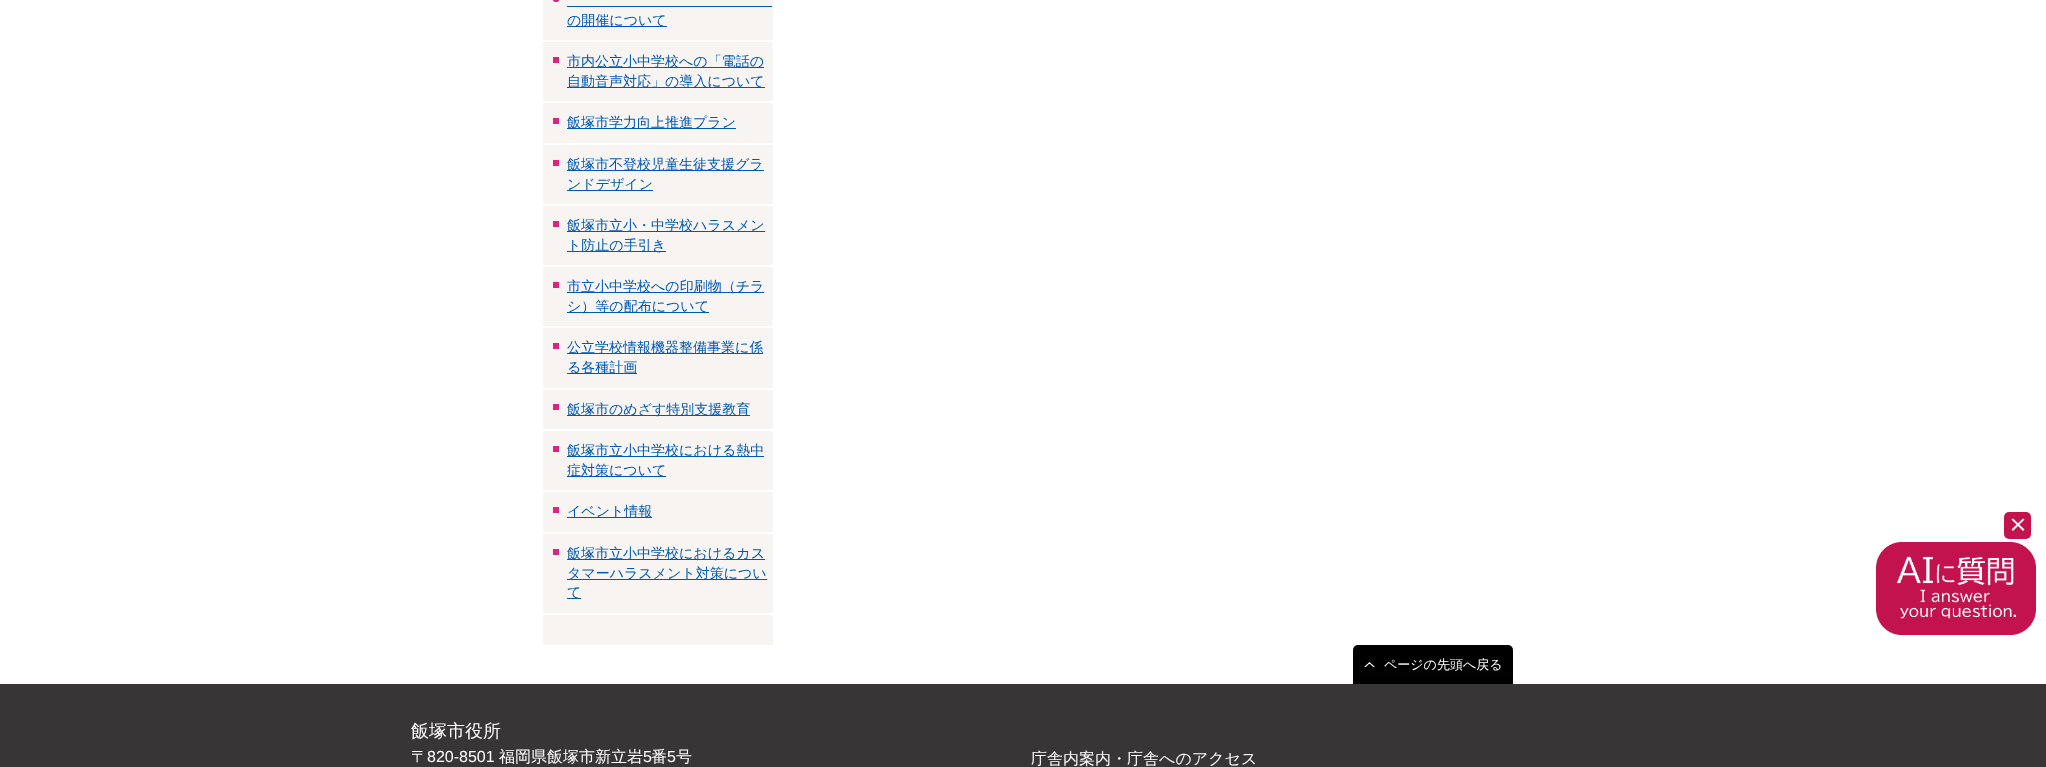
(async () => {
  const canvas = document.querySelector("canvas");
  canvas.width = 2046;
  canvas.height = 767;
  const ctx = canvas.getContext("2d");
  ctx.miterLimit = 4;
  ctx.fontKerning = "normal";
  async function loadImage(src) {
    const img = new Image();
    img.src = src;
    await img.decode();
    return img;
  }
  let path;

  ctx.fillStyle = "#ffffff";
  ctx.fillRect(0, 0, 2046, 767);
  ctx.fillStyle = "#f7f4f2";
  ctx.fillRect(543, 0, 230, 645);
  ctx.drawImage(await loadImage("img/1.png"), 553, 0, 6, 2);
  for (const [x, y, w, h, color] of [
    [543, 40, 230, 2, "#ffffff"],
    [567, 6, 205, 1, "#0059b2"],
    [567, 26, 100, 1, "#0059b2"],
    [553, 57, 6, 6, "#d92580"],
    [543, 101, 230, 2, "#ffffff"],
    [567, 67, 197, 1, "#0059b2"],
    [567, 87, 198, 1, "#0059b2"],
    [553, 118, 6, 6, "#d92580"],
    [543, 143, 230, 2, "#ffffff"],
    [567, 128, 169, 1, "#0059b2"],
    [553, 160, 6, 6, "#d92580"],
    [543, 204, 230, 2, "#ffffff"],
    [567, 170, 197, 1, "#0059b2"],
    [567, 190, 86, 1, "#0059b2"],
    [553, 221, 6, 6, "#d92580"],
    [543, 265, 230, 2, "#ffffff"],
    [567, 231, 198, 1, "#0059b2"],
    [567, 251, 99, 1, "#0059b2"],
    [553, 282, 6, 6, "#d92580"],
    [543, 326, 230, 2, "#ffffff"],
    [567, 292, 197, 1, "#0059b2"],
    [567, 312, 142, 1, "#0059b2"],
    [553, 343, 6, 6, "#d92580"],
    [543, 388, 230, 2, "#ffffff"],
    [567, 353, 196, 1, "#0059b2"],
    [567, 373, 70, 1, "#0059b2"],
    [553, 404, 6, 6, "#d92580"],
    [543, 429, 230, 2, "#ffffff"],
    [567, 415, 183, 1, "#0059b2"],
    [553, 446, 6, 6, "#d92580"],
    [543, 490, 230, 2, "#ffffff"],
    [567, 456, 197, 1, "#0059b2"],
    [567, 476, 99, 1, "#0059b2"],
    [553, 507, 6, 6, "#d92580"],
    [543, 532, 230, 2, "#ffffff"],
    [567, 517, 85, 1, "#0059b2"],
    [553, 549, 6, 6, "#d92580"],
    [543, 613, 230, 2, "#ffffff"],
    [567, 559, 198, 1, "#0059b2"],
    [567, 579, 200, 1, "#0059b2"],
    [567, 598, 14, 1, "#0059b2"],
  ]) {
    ctx.fillStyle = color;
    ctx.fillRect(x, y, w, h);
  }
  ctx.fillStyle = "#000000";
  ctx.beginPath();
  ctx.roundRect(1353, 645, 160, 39, [5, 5, 0, 0]);
  ctx.fill();
  ctx.drawImage(await loadImage("img/2.png"), 1364, 662, 11, 5);
  ctx.fillStyle = "#373535";
  ctx.fillRect(0, 684, 2046, 83);
  ctx.fillStyle = "#c2134e";
  ctx.beginPath();
  ctx.roundRect(2004, 512, 27, 27, 5);
  ctx.fill();
  ctx.fillStyle = "#ffffff";
  path = new Path2D("M2013 518.5L2024.5 529.5L2023 531L2011.5 519.5Z");
  ctx.fill(path);
  path = new Path2D("M2011.5 529.5L2023 518.5L2024.5 519.5L2013 531Z");
  ctx.fill(path);
  ctx.drawImage(await loadImage("img/3.png"), 1876, 542, 160, 93);
  ctx.font = "500 14px WenQuanYi Zen Hei";
  ctx.fillStyle = "#0059b2";
  for (const [text, x, y] of [
    ["の開催について", 567, 25],
    ["市内公立小中学校への「電話の", 567, 66],
    ["自動音声対応」の導入について", 567, 86],
    ["飯塚市学力向上推進プラン", 567, 127],
    ["飯塚市不登校児童生徒支援グラ", 567, 169],
    ["ンドデザイン", 567, 189],
    ["飯塚市立小・中学校ハラスメン", 567, 230],
    ["ト防止の手引き", 567, 250],
    ["市立小中学校への印刷物（チラ", 567, 291],
    ["シ）等の配布について", 567, 311],
    ["公立学校情報機器整備事業に係", 567, 352],
    ["る各種計画", 567, 372],
    ["飯塚市のめざす特別支援教育", 567, 414],
    ["飯塚市立小中学校における熱中", 567, 455],
    ["症対策について", 567, 475],
    ["イベント情報", 567, 516],
    ["飯塚市立小中学校におけるカス", 567, 558],
    ["タマーハラスメント対策につい", 567, 578],
    ["て", 567, 597],
  ]) {
    ctx.fillText(text, x, y);
  }
  ctx.font = "500 13px WenQuanYi Zen Hei";
  ctx.fillStyle = "#ffffff";
  ctx.fillText("ページの先頭へ戻る", 1384, 669);
  ctx.font = "500 18px WenQuanYi Zen Hei";
  ctx.fillText("飯塚市役所", 411, 737);
  ctx.font = "500 16px WenQuanYi Zen Hei";
  ctx.fillText("〒", 411, 762);
  ctx.font = "16px Liberation Sans";
  ctx.fillText("820-8501", 427, 762);
  ctx.font = "500 16px WenQuanYi Zen Hei";
  ctx.fillText("福岡県飯塚市新立岩", 499, 762);
  ctx.font = "16px Liberation Sans";
  ctx.fillText("5", 643, 762);
  ctx.font = "500 16px WenQuanYi Zen Hei";
  ctx.fillText("番", 651, 762);
  ctx.font = "16px Liberation Sans";
  ctx.fillText("5", 667, 762);
  ctx.font = "500 16px WenQuanYi Zen Hei";
  ctx.fillText("号", 676, 762);
  ctx.fillText("庁舎内案内・庁舎へのアクセス", 1031, 764);
})();
